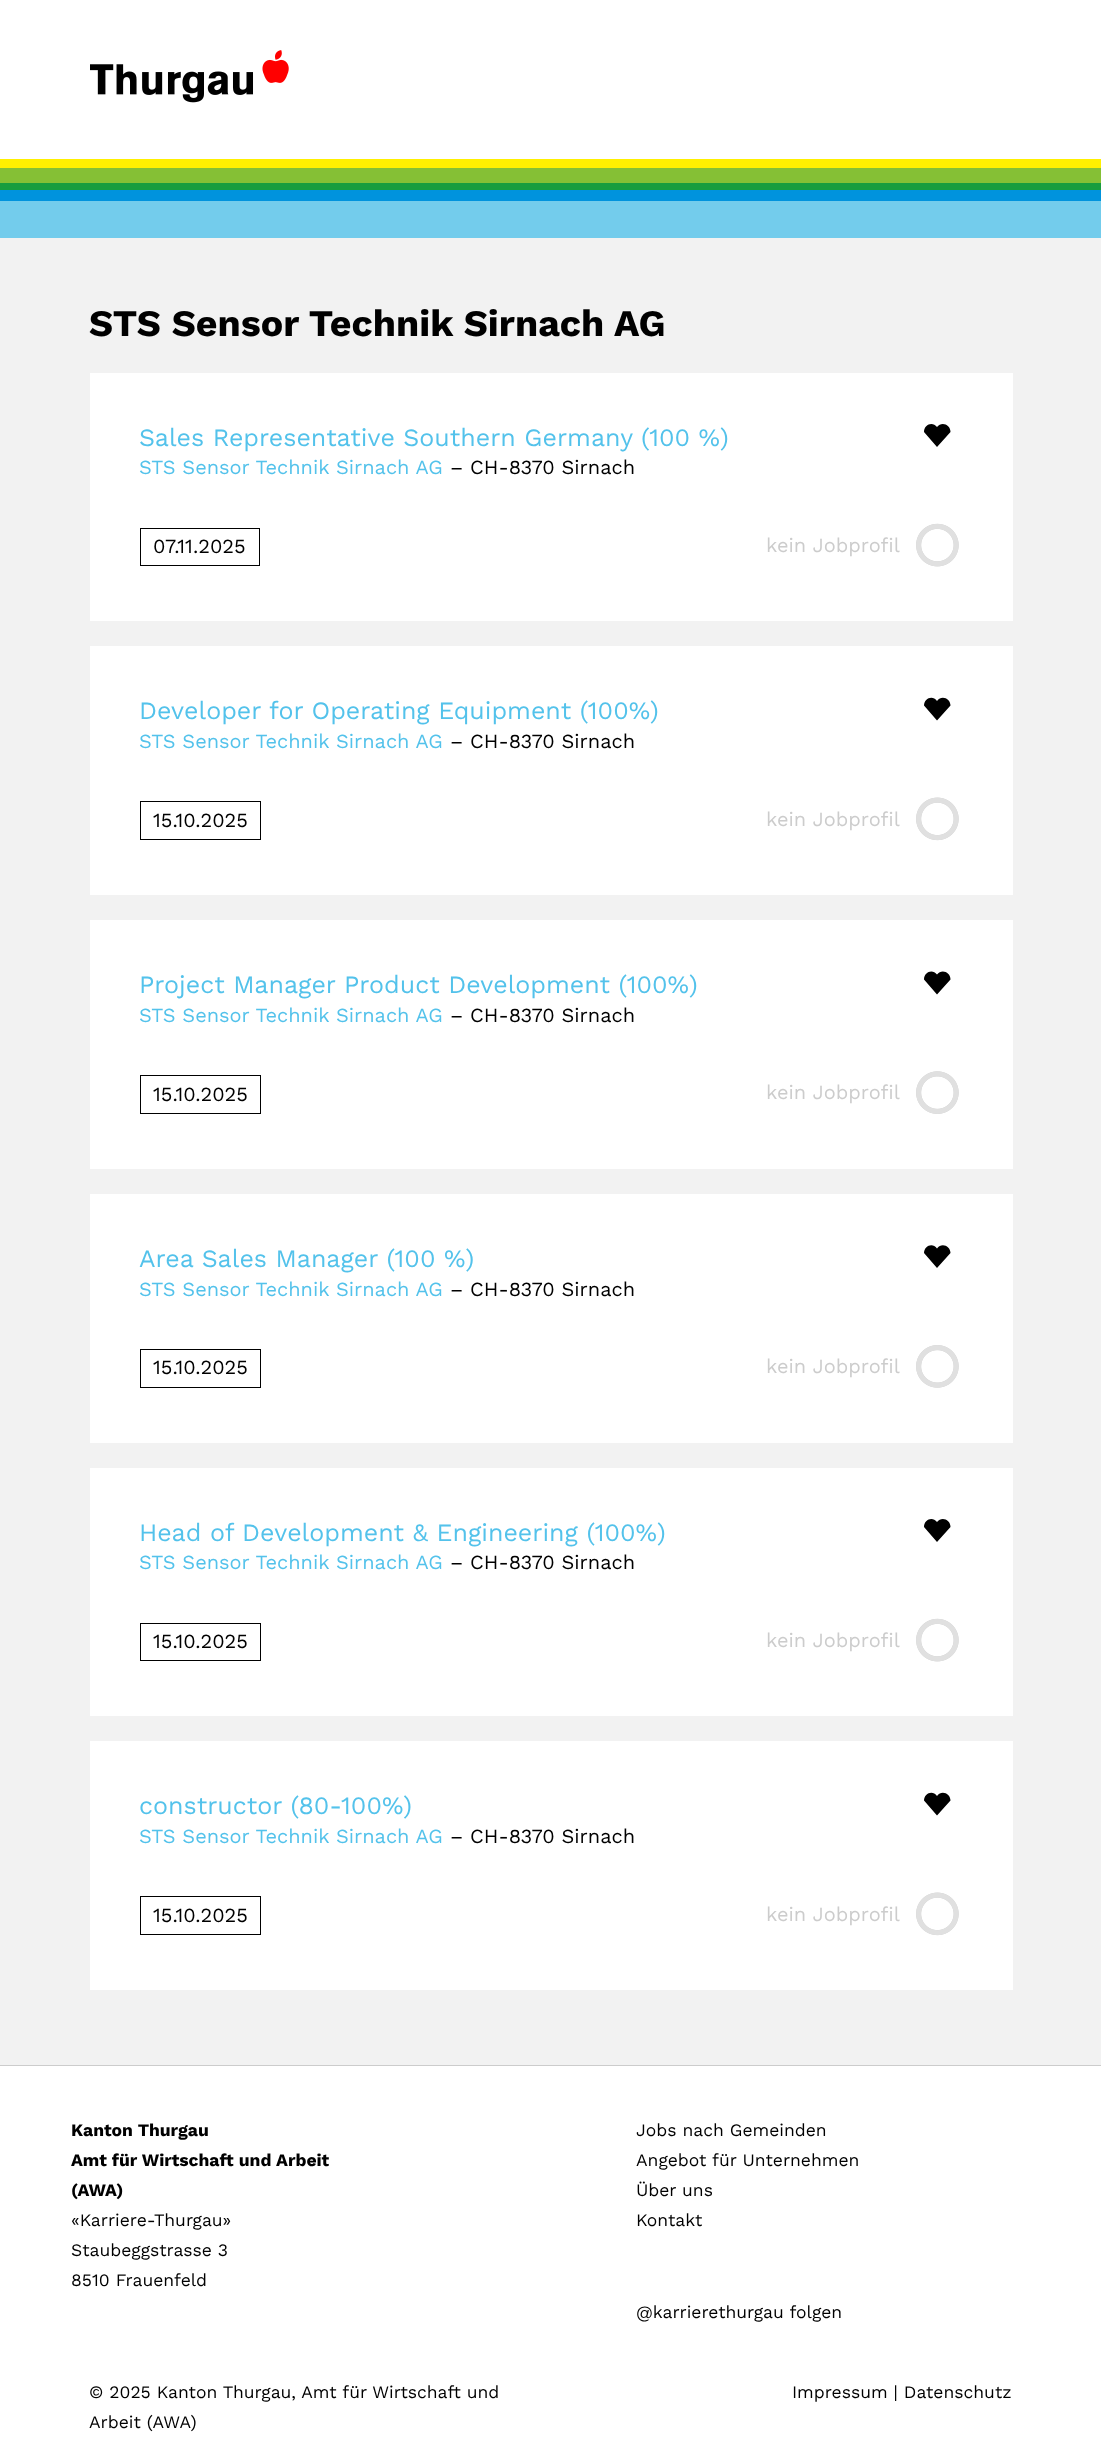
(async () => {
  const canvas = document.querySelector("canvas");
  canvas.width = 1101;
  canvas.height = 2447;
  const ctx = canvas.getContext("2d");
  ctx.miterLimit = 4;
  ctx.fontKerning = "normal";
  async function loadImage(src) {
    const img = new Image();
    img.src = src;
    await img.decode();
    return img;
  }
  let path;

  ctx.fillStyle = "#ffffff";
  ctx.fillRect(0, 0, 1101, 2447);
  ctx.drawImage(await loadImage("img/1.png"), 90, 50, 199, 53);
  for (const [x, y, w, h, color] of [
    [0, 168, 1101, 15, "#85c035"],
    [0, 159, 1101, 9, "#fff000"],
    [0, 183, 1101, 7, "#189d3e"],
    [0, 190, 1101, 11, "#0093dd"],
    [0, 238, 1101, 1827, "#f2f2f2"],
    [0, 201, 1101, 37, "#73ccec"],
    [90, 373, 923, 248, "#ffffff"],
  ]) {
    ctx.fillStyle = color;
    ctx.fillRect(x, y, w, h);
  }
  ctx.fillStyle = "#000000";
  path = new Path2D("M937 427C941.5 421 950.5 424.5 950.5 432L937 447L924 432C924 424.5 932.5 421 937 427Z");
  ctx.fill(path);
  ctx.strokeStyle = "#000000";
  ctx.strokeRect(140.5, 528.5, 119, 37);
  ctx.drawImage(await loadImage("img/2.png"), 916, 523, 43, 44);
  ctx.fillStyle = "#ffffff";
  ctx.fillRect(90, 646, 923, 249);
  ctx.fillStyle = "#000000";
  path = new Path2D("M937 701C941.5 694.5 950.5 698.5 950.5 705.5L937 720.5L924 705.5C924 698.5 932.5 694.5 937 701Z");
  ctx.fill(path);
  ctx.strokeRect(140.5, 801.5, 120, 38);
  ctx.drawImage(await loadImage("img/3.png"), 916, 797, 43, 44);
  ctx.fillStyle = "#ffffff";
  ctx.fillRect(90, 920, 923, 249);
  ctx.fillStyle = "#000000";
  path = new Path2D("M937 974.5C941.5 968.5 950.5 972 950.5 979.5L937 994.5L924 979.5C924 972 932.5 968.5 937 974.5Z");
  ctx.fill(path);
  ctx.strokeRect(140.5, 1075.5, 120, 38);
  ctx.drawImage(await loadImage("img/4.png"), 916, 1071, 43, 43);
  ctx.fillStyle = "#ffffff";
  ctx.fillRect(90, 1194, 923, 249);
  ctx.fillStyle = "#000000";
  path = new Path2D("M937 1248.5C941.5 1242 950.5 1246 950.5 1253L937 1268L924 1253C924 1246 932.5 1242 937 1248.5Z");
  ctx.fill(path);
  ctx.strokeRect(140.5, 1349.5, 120, 38);
  ctx.drawImage(await loadImage("img/5.png"), 916, 1345, 43, 43);
  ctx.fillStyle = "#ffffff";
  ctx.fillRect(90, 1468, 923, 248);
  ctx.fillStyle = "#000000";
  path = new Path2D("M937 1522C941.5 1516 950.5 1519.5 950.5 1527L937 1542L924 1527C924 1519.5 932.5 1516 937 1522Z");
  ctx.fill(path);
  ctx.strokeRect(140.5, 1623.5, 120, 37);
  ctx.drawImage(await loadImage("img/2.png"), 916, 1618, 43, 44);
  ctx.fillStyle = "#ffffff";
  ctx.fillRect(90, 1741, 923, 249);
  ctx.fillStyle = "#000000";
  path = new Path2D("M937 1796C941.5 1789.5 950.5 1793.5 950.5 1800.5L937 1815.5L924 1800.5C924 1793.5 932.5 1789.5 937 1796Z");
  ctx.fill(path);
  ctx.strokeRect(140.5, 1896.5, 120, 38);
  ctx.drawImage(await loadImage("img/3.png"), 916, 1892, 43, 44);
  ctx.fillStyle = "#cccccc";
  ctx.fillRect(0, 2065, 1101, 1);
  ctx.font = "bold 37.5px Work Sans";
  ctx.fillStyle = "#000000";
  ctx.fillText("STS Sensor Technik Sirnach AG", 89, 336);
  ctx.font = "25px Work Sans";
  ctx.fillStyle = "#53c2eb";
  ctx.fillText("Sales Representative Southern Germany (100 %)", 139, 446);
  ctx.font = "20px Work Sans";
  ctx.fillText("STS Sensor Technik Sirnach AG", 139, 474);
  ctx.fillStyle = "#000000";
  ctx.fillText("– CH-8370 Sirnach", 450, 474);
  ctx.fillText("07.11.2025", 153, 553);
  ctx.fillStyle = "#cccccc";
  ctx.fillText("kein Jobprofil", 766, 552);
  ctx.font = "25px Work Sans";
  ctx.fillStyle = "#53c2eb";
  ctx.fillText("Developer for Operating Equipment (100%)", 139, 719);
  ctx.font = "20px Work Sans";
  ctx.fillText("STS Sensor Technik Sirnach AG", 139, 748);
  ctx.fillStyle = "#000000";
  ctx.fillText("– CH-8370 Sirnach", 450, 748);
  ctx.fillText("15.10.2025", 153, 827);
  ctx.fillStyle = "#cccccc";
  ctx.fillText("kein Jobprofil", 766, 826);
  ctx.font = "25px Work Sans";
  ctx.fillStyle = "#53c2eb";
  ctx.fillText("Project Manager Product Development (100%)", 139, 993);
  ctx.font = "20px Work Sans";
  ctx.fillText("STS Sensor Technik Sirnach AG", 139, 1022);
  ctx.fillStyle = "#000000";
  ctx.fillText("– CH-8370 Sirnach", 450, 1022);
  ctx.fillText("15.10.2025", 153, 1101);
  ctx.fillStyle = "#cccccc";
  ctx.fillText("kein Jobprofil", 766, 1099);
  ctx.font = "25px Work Sans";
  ctx.fillStyle = "#53c2eb";
  ctx.fillText("Area Sales Manager (100 %)", 139, 1267);
  ctx.font = "20px Work Sans";
  ctx.fillText("STS Sensor Technik Sirnach AG", 139, 1296);
  ctx.fillStyle = "#000000";
  ctx.fillText("– CH-8370 Sirnach", 450, 1296);
  ctx.fillText("15.10.2025", 153, 1374);
  ctx.fillStyle = "#cccccc";
  ctx.fillText("kein Jobprofil", 766, 1373);
  ctx.font = "25px Work Sans";
  ctx.fillStyle = "#53c2eb";
  ctx.fillText("Head of Development & Engineering (100%)", 139, 1541);
  ctx.font = "20px Work Sans";
  ctx.fillText("STS Sensor Technik Sirnach AG", 139, 1569);
  ctx.fillStyle = "#000000";
  ctx.fillText("– CH-8370 Sirnach", 450, 1569);
  ctx.fillText("15.10.2025", 153, 1648);
  ctx.fillStyle = "#cccccc";
  ctx.fillText("kein Jobprofil", 766, 1647);
  ctx.font = "25px Work Sans";
  ctx.fillStyle = "#53c2eb";
  ctx.fillText("constructor (80-100%)", 139, 1814);
  ctx.font = "20px Work Sans";
  ctx.fillText("STS Sensor Technik Sirnach AG", 139, 1843);
  ctx.fillStyle = "#000000";
  ctx.fillText("– CH-8370 Sirnach", 450, 1843);
  ctx.fillText("15.10.2025", 153, 1922);
  ctx.fillStyle = "#cccccc";
  ctx.fillText("kein Jobprofil", 766, 1921);
  ctx.font = "bold 17.5px Work Sans";
  ctx.fillStyle = "#000000";
  for (const [text, x, y] of [
    ["Kanton Thurgau", 71, 2136],
    ["Amt für Wirtschaft und Arbeit", 71, 2166],
    ["(AWA)", 71, 2196],
  ]) {
    ctx.fillText(text, x, y);
  }
  ctx.font = "17.5px Work Sans";
  for (const [text, x, y] of [
    ["«Karriere-Thurgau»", 71, 2226],
    ["Staubeggstrasse 3", 71, 2256],
    ["8510 Frauenfeld", 71, 2286],
    ["Jobs nach Gemeinden", 636, 2136],
    ["Angebot für Unternehmen", 636, 2166],
    ["Über uns", 636, 2196],
    ["Kontakt", 636, 2226],
    ["@karrierethurgau folgen", 636, 2318],
    ["© 2025 Kanton Thurgau, Amt für Wirtschaft und", 89, 2398],
    ["Arbeit (AWA)", 89, 2428],
    ["Impressum | Datenschutz", 792, 2398],
  ]) {
    ctx.fillText(text, x, y);
  }
})();
